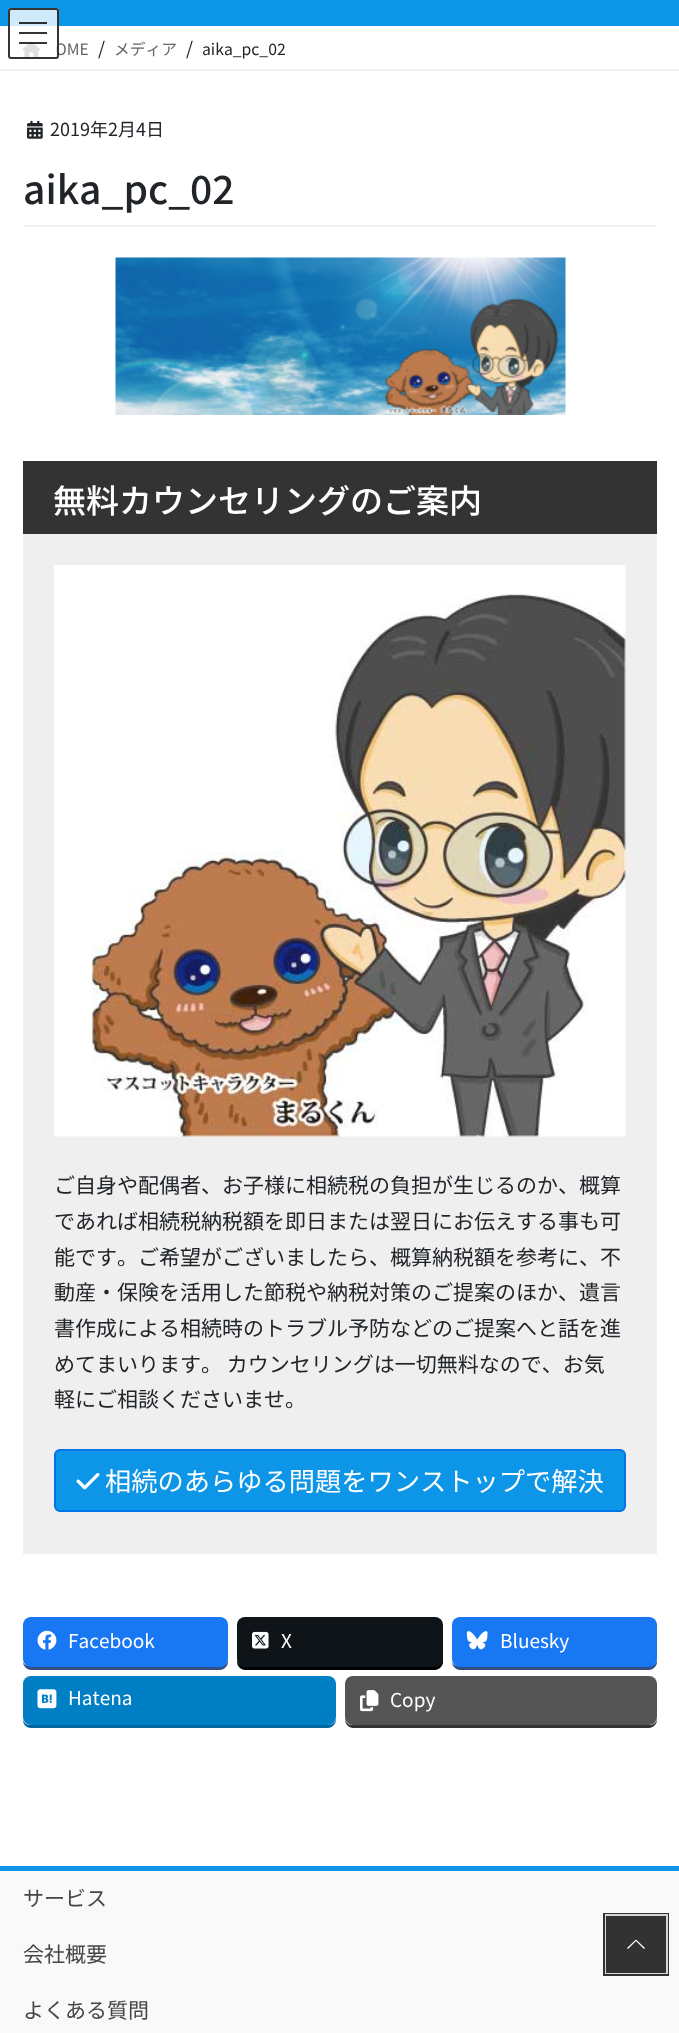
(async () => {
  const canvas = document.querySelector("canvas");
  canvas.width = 679;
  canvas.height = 2033;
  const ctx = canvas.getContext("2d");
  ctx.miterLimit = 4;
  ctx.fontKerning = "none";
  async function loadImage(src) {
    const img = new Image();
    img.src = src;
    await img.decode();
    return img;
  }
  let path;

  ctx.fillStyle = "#ffffff";
  ctx.fillRect(0, 0, 679, 2033);
  ctx.fillStyle = "#0d96e8";
  ctx.fillRect(0, 0, 679, 26);
  ctx.fillStyle = "#f2f2f2";
  ctx.fillRect(0, 69, 679, 2);
  ctx.drawImage(await loadImage("img/1.png"), 22, 41, 19, 16);
  ctx.fillRect(23, 225, 634, 2);
  ctx.drawImage(await loadImage("img/2.png"), 27, 120, 16, 19);
  ctx.drawImage(await loadImage("img/3.png"), 115, 257, 451, 158);
  ctx.fillStyle = "#efefef";
  ctx.fillRect(23, 534, 634, 1020);
  ctx.fillStyle = "#333333";
  ctx.fillRect(23, 461, 634, 73);
  ctx.drawImage(await loadImage("img/4.png"), 54, 565, 572, 572);
  ctx.fillStyle = "#0d96e8";
  ctx.beginPath();
  ctx.roundRect(55, 1450, 570, 61, 5);
  ctx.fill();
  ctx.strokeStyle = "#0074e8";
  ctx.lineWidth = 2;
  ctx.stroke();
  ctx.drawImage(await loadImage("img/5.png"), 76, 1473, 24, 17);
  ctx.fillStyle = "#344e84";
  path = new Path2D("M23 1662C23 1666 27 1670 31 1670H220C224 1670 228 1666 228 1662V1659C228 1663 225 1666 220 1666H30C27 1666 24 1665 23 1662Z");
  ctx.fill(path);
  ctx.fillStyle = "#1877f2";
  ctx.beginPath();
  ctx.roundRect(23, 1617, 205, 50, 8);
  ctx.fill();
  ctx.drawImage(await loadImage("img/6.png"), 37, 1630, 20, 20);
  ctx.fillStyle = "#000000";
  path = new Path2D("M237 1659V1662C237 1666 241 1670 245 1670H435C439 1670 443 1666 443 1662V1628L442 1625V1659C442 1663 439 1666 435 1666H244C240 1666 237 1663 237 1659Z");
  ctx.fill(path);
  ctx.fillStyle = "#0f1419";
  ctx.beginPath();
  ctx.roundRect(237, 1617, 206, 50, 8);
  ctx.fill();
  ctx.drawImage(await loadImage("img/7.png"), 252, 1631, 17, 18);
  ctx.fillStyle = "#344e84";
  path = new Path2D("M452 1662C452 1666 456 1670 460 1670H649C653 1670 657 1666 657 1662V1659C657 1663 654 1666 650 1666H459C456 1666 453 1665 452 1662Z");
  ctx.fill(path);
  ctx.fillStyle = "#1877f2";
  ctx.beginPath();
  ctx.roundRect(452, 1617, 205, 50, 8);
  ctx.fill();
  ctx.drawImage(await loadImage("img/8.png"), 466, 1631, 22, 19);
  ctx.fillStyle = "#00679f";
  path = new Path2D("M23 1720C23 1725 27 1728 31 1728H328C332 1728 336 1724 336 1720V1718C336 1722 333 1725 328 1725H30C27 1725 24 1723 23 1720Z");
  ctx.fill(path);
  ctx.fillStyle = "#007fc5";
  ctx.beginPath();
  ctx.roundRect(23, 1676, 313, 49, 8);
  ctx.fill();
  ctx.drawImage(await loadImage("img/9.png"), 37, 1689, 20, 20);
  ctx.fillStyle = "#333333";
  path = new Path2D("M345 1718V1720C345 1724 349 1728 353 1728H649C653 1728 657 1724 657 1720V1718C657 1722 654 1725 650 1725H352C348 1725 345 1722 345 1718Z");
  ctx.fill(path);
  ctx.fillStyle = "#555555";
  ctx.beginPath();
  ctx.roundRect(345, 1676, 312, 49, 8);
  ctx.fill();
  ctx.drawImage(await loadImage("img/10.png"), 360, 1690, 19, 22);
  ctx.fillStyle = "#f9f9f9";
  ctx.fillRect(0, 1871, 679, 162);
  ctx.fillStyle = "#0d96e8";
  ctx.fillRect(0, 1866, 679, 5);
  ctx.strokeStyle = "#323232";
  ctx.lineWidth = 3;
  ctx.strokeRect(604.5, 1914.5, 63, 60);
  ctx.strokeStyle = "rgba(255, 255, 255, 0.8)";
  ctx.lineWidth = 2;
  ctx.strokeRect(606, 1915, 61, 58);
  ctx.fillStyle = "rgba(0, 0, 0, 0.8)";
  ctx.fillRect(606, 1916, 60, 57);
  ctx.fillStyle = "#ffffff";
  path = new Path2D("M645 1948L644 1949L636 1941L628 1949L627 1948L636 1939.5Z");
  ctx.fill(path);
  ctx.font = "15.75px Noto Sans JP";
  ctx.fillStyle = "#666666";
  ctx.fillText("OME", 55, 55);
  ctx.fillStyle = "rgba(255, 255, 255, 0.8)";
  ctx.beginPath();
  ctx.roundRect(8, 8, 51, 51, 3);
  ctx.fill();
  for (const [x, y, w, h, color] of [
    [19, 42, 28, 2, "rgba(0, 0, 0, 0.8)"],
    [19, 32, 28, 2, "#333333"],
    [19, 22, 28, 2, "#292f32"],
  ]) {
    ctx.fillStyle = color;
    ctx.fillRect(x, y, w, h);
  }
  ctx.beginPath();
  ctx.roundRect(9, 9, 49, 49, 2);
  ctx.strokeStyle = "#333333";
  ctx.stroke();
  ctx.font = "18px Noto Sans JP";
  ctx.fillStyle = "#212529";
  ctx.fillText("/", 98, 55);
  ctx.font = "15.75px Noto Sans JP";
  ctx.fillStyle = "#666666";
  ctx.fillText("メディア", 114, 55);
  ctx.font = "18px Noto Sans JP";
  ctx.fillStyle = "#212529";
  ctx.fillText("/", 186, 55);
  ctx.font = "15.75px Noto Sans JP";
  ctx.fillText("aika_pc_02", 202, 55);
  ctx.font = "18px Noto Sans JP";
  ctx.fillText("2019年2月4日", 50, 136);
  ctx.font = "500 39px Noto Sans JP";
  ctx.fillText("aika_pc_02", 23, 204);
  ctx.font = "500 33px Noto Sans JP";
  ctx.fillStyle = "#ffffff";
  ctx.fillText("無料カウンセリングのご案内", 53, 513);
  ctx.font = "21px Noto Sans JP";
  ctx.fillStyle = "#212529";
  for (const [text, x, y] of [
    ["ご自身や配偶者、お子様に相続税の負担が生じるのか、概算", 54, 1193],
    ["であれば相続税納税額を即日または翌日にお伝えする事も可", 54, 1229],
    ["能です。ご希望がございましたら、概算納税額を参考に、不", 54, 1265],
    ["動産・保険を活用した節税や納税対策のご提案のほか、遺言", 54, 1300],
    ["書作成による相続時のトラブル予防などのご提案へと話を進", 54, 1336],
    ["めてまいります。 カウンセリングは一切無料なので、お気", 54, 1372],
    ["軽にご相談くださいませ。", 54, 1407],
  ]) {
    ctx.fillText(text, x, y);
  }
  ctx.font = "26.25px Noto Sans JP";
  ctx.fillStyle = "#ffffff";
  ctx.fillText("相続のあらゆる問題をワンストップで解決", 105, 1491);
  ctx.font = "19px Noto Sans JP";
  for (const [text, x, y] of [
    ["Facebook", 68, 1648],
    ["X", 281, 1648],
    ["Bluesky", 500, 1648],
    ["Hatena", 68, 1705],
    ["Copy", 390, 1707],
  ]) {
    ctx.fillText(text, x, y);
  }
  ctx.font = "21px Noto Sans JP";
  ctx.fillStyle = "#464646";
  for (const [text, x, y] of [
    ["サービス", 23, 1906],
    ["会社概要", 23, 1962],
    ["よくある質問", 23, 2018],
  ]) {
    ctx.fillText(text, x, y);
  }
})();
